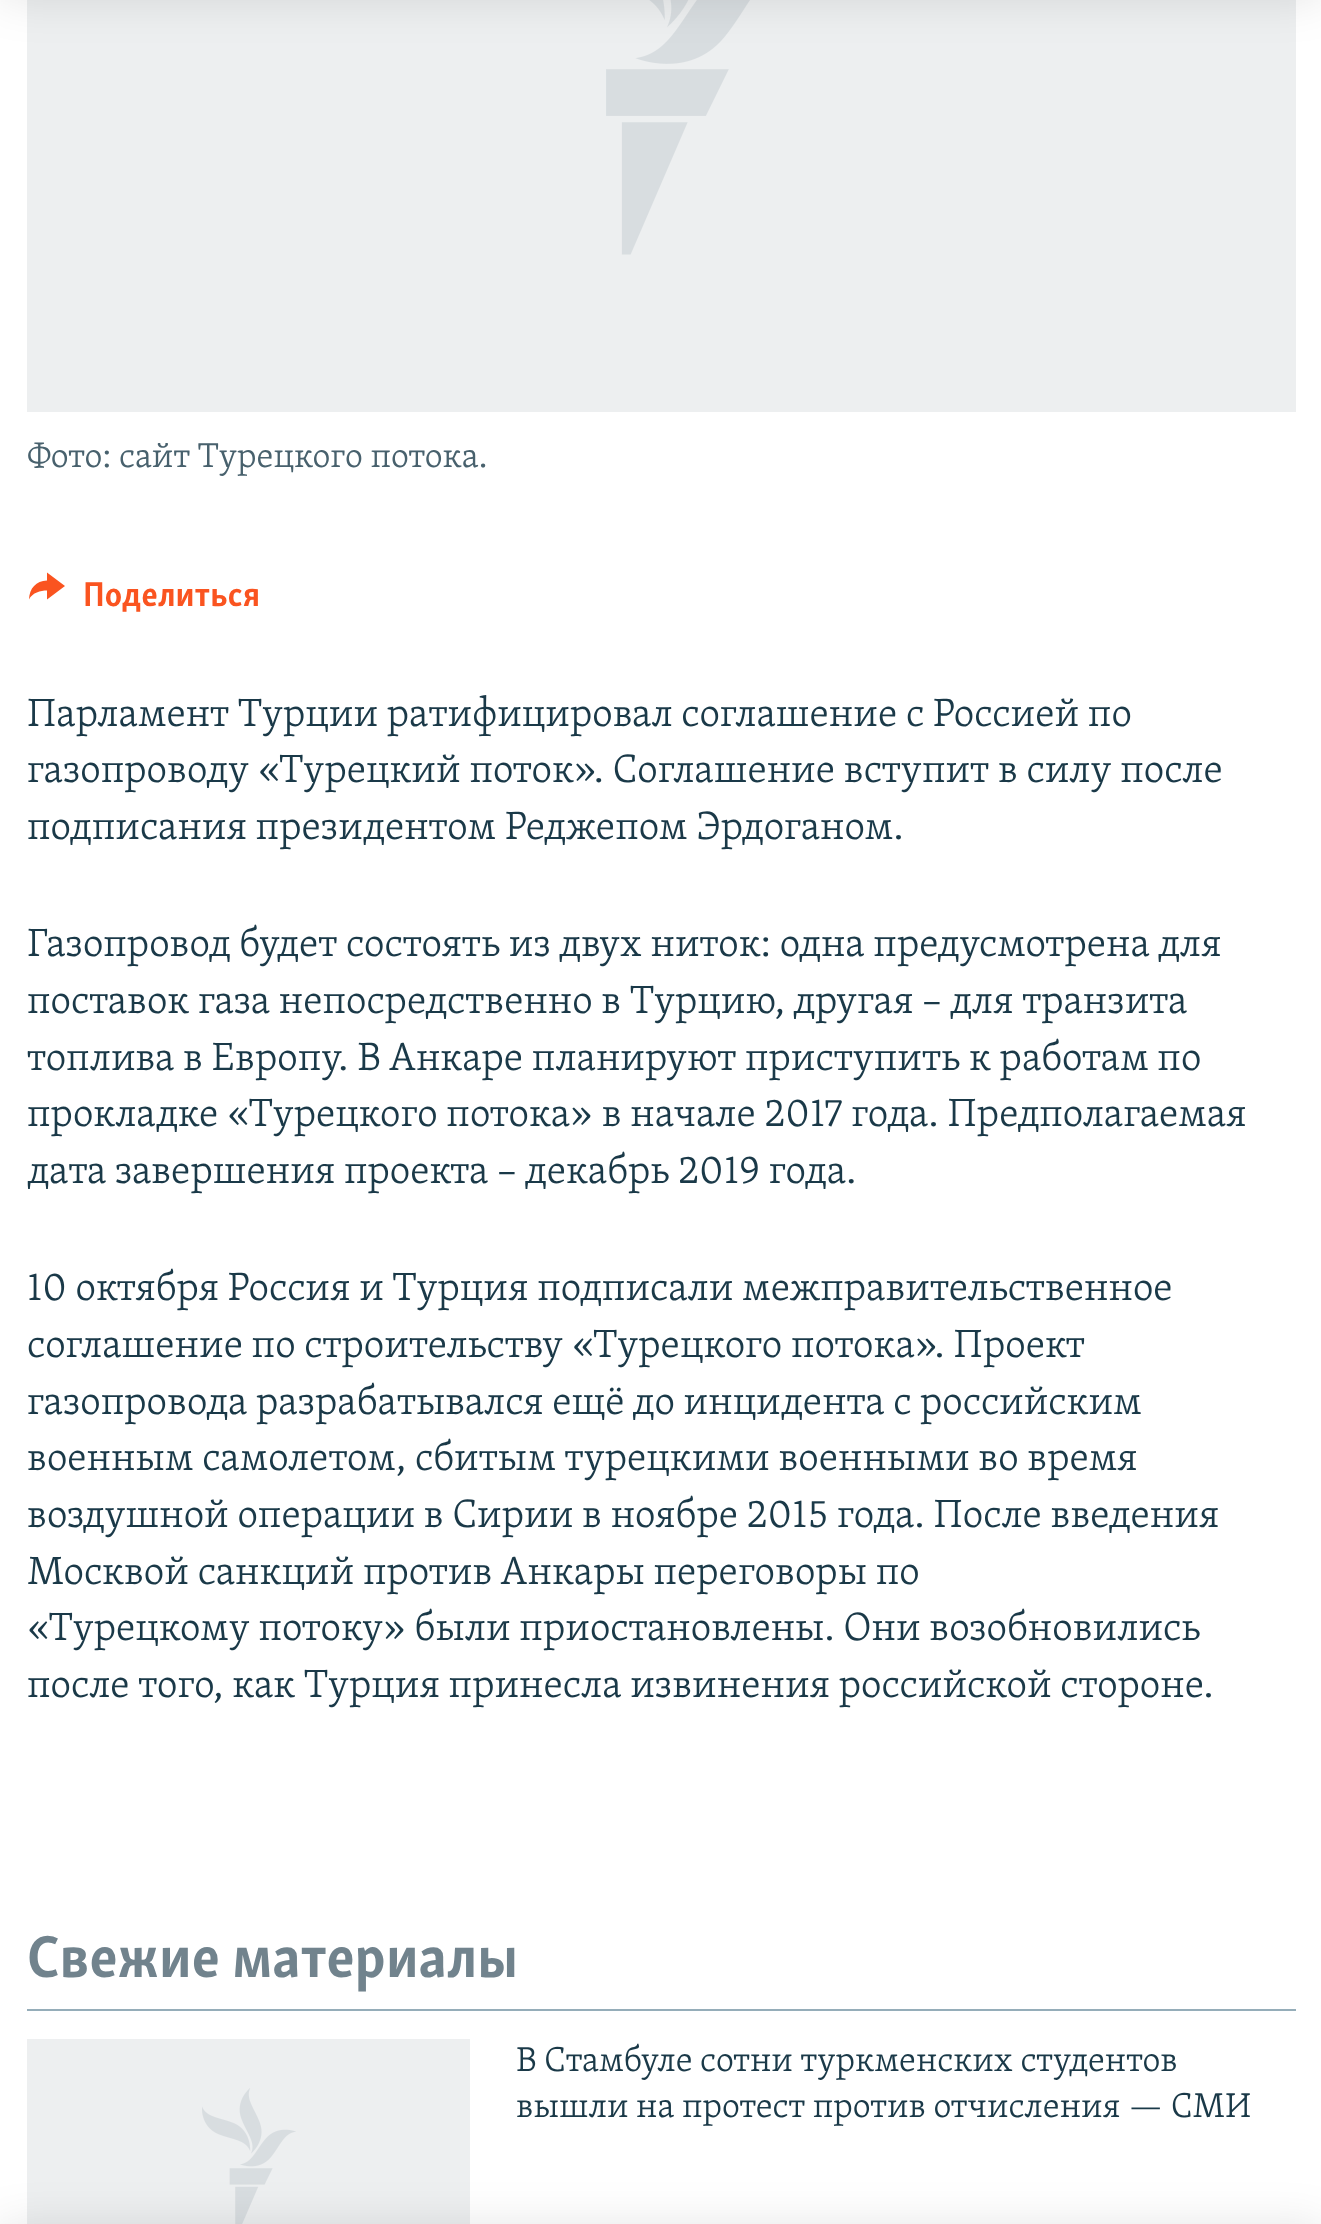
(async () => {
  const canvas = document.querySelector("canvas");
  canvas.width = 1321;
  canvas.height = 2224;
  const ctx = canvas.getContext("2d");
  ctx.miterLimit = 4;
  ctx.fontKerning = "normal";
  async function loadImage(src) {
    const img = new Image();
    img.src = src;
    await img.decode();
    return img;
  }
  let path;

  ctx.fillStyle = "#ffffff";
  ctx.fillRect(0, 0, 1321, 2224);
  ctx.fillStyle = "#edeff0";
  ctx.fillRect(27, 0, 1269, 412);
  ctx.drawImage(await loadImage("img/1.png"), 606, 0, 144, 255);
  ctx.fillStyle = "rgba(0, 0, 0, 0.1)";
  ctx.filter = "blur(22.5px)";
  ctx.beginPath();
  ctx.rect(0, -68, 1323, 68);
  ctx.fill();
  ctx.filter = "none";
  ctx.fillStyle = "#edeff0";
  ctx.fillRect(27, 2039, 443, 185);
  ctx.drawImage(await loadImage("img/2.png"), 202, 2088, 94, 136);
  ctx.fillStyle = "rgba(0, 0, 0, 0.1)";
  ctx.filter = "blur(22.5px)";
  ctx.beginPath();
  ctx.rect(0, 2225, 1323, 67);
  ctx.fill();
  ctx.filter = "none";
  ctx.fillStyle = "#fa5420";
  path = new Path2D("M29 599.5C29.5 588 36 581 47 580.5V572.5L65 586L47 599.5V590.5C40.5 590.5 32.5 592.5 29 599.5Z");
  ctx.fill(path);
  ctx.fillStyle = "#95adb9";
  ctx.fillRect(27, 2009, 1269, 2);
  ctx.font = "300 35.4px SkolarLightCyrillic";
  ctx.fillStyle = "#48616d";
  ctx.fillText("Фото: сайт Турецкого потока.", 27, 467);
  ctx.font = "bold 35.4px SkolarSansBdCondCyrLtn";
  ctx.fillStyle = "#fa5420";
  ctx.fillText("Поделиться", 83, 606);
  ctx.font = "300 40.5px SkolarLightCyrillic";
  ctx.fillStyle = "#1a3948";
  for (const [text, x, y] of [
    ["Парламент Турции ратифицировал соглашение с Россией по", 27, 726],
    ["газопроводу «Турецкий поток». Соглашение вступит в силу после", 27, 782],
    ["подписания президентом Реджепом Эрдоганом.", 27, 839],
    ["Газопровод будет состоять из двух ниток: одна предусмотрена для", 27, 956],
    ["поставок газа непосредственно в Турцию, другая – для транзита", 27, 1013],
    ["топлива в Европу. В Анкаре планируют приступить к работам по", 27, 1070],
    ["прокладке «Турецкого потока» в начале 2017 года. Предполагаемая", 27, 1126],
    ["дата завершения проекта – декабрь 2019 года.", 27, 1183],
    ["10 октября Россия и Турция подписали межправительственное", 27, 1300],
    ["соглашение по строительству «Турецкого потока». Проект", 27, 1357],
    ["газопровода разрабатывался ещё до инцидента с российским", 27, 1414],
    ["военным самолетом, сбитым турецкими военными во время", 27, 1470],
    ["воздушной операции в Сирии в ноябре 2015 года. После введения", 27, 1527],
    ["Москвой санкций против Анкары переговоры по", 27, 1584],
    ["«Турецкому потоку» были приостановлены. Они возобновились", 27, 1640],
    ["после того, как Турция принесла извинения российской стороне.", 27, 1697],
  ]) {
    ctx.fillText(text, x, y);
  }
  ctx.font = "bold 60.75px SkolarSansBdCondCyrLtn";
  ctx.fillStyle = "#71838d";
  ctx.fillText("Свежие материалы", 27, 1977);
  ctx.font = "300 35.4px SkolarLightCyrillic";
  ctx.fillStyle = "#1a3948";
  ctx.fillText("В Стамбуле сотни туркменских студентов", 516, 2071);
  ctx.fillText("вышли на протест против отчисления — СМИ", 516, 2117);
})();
